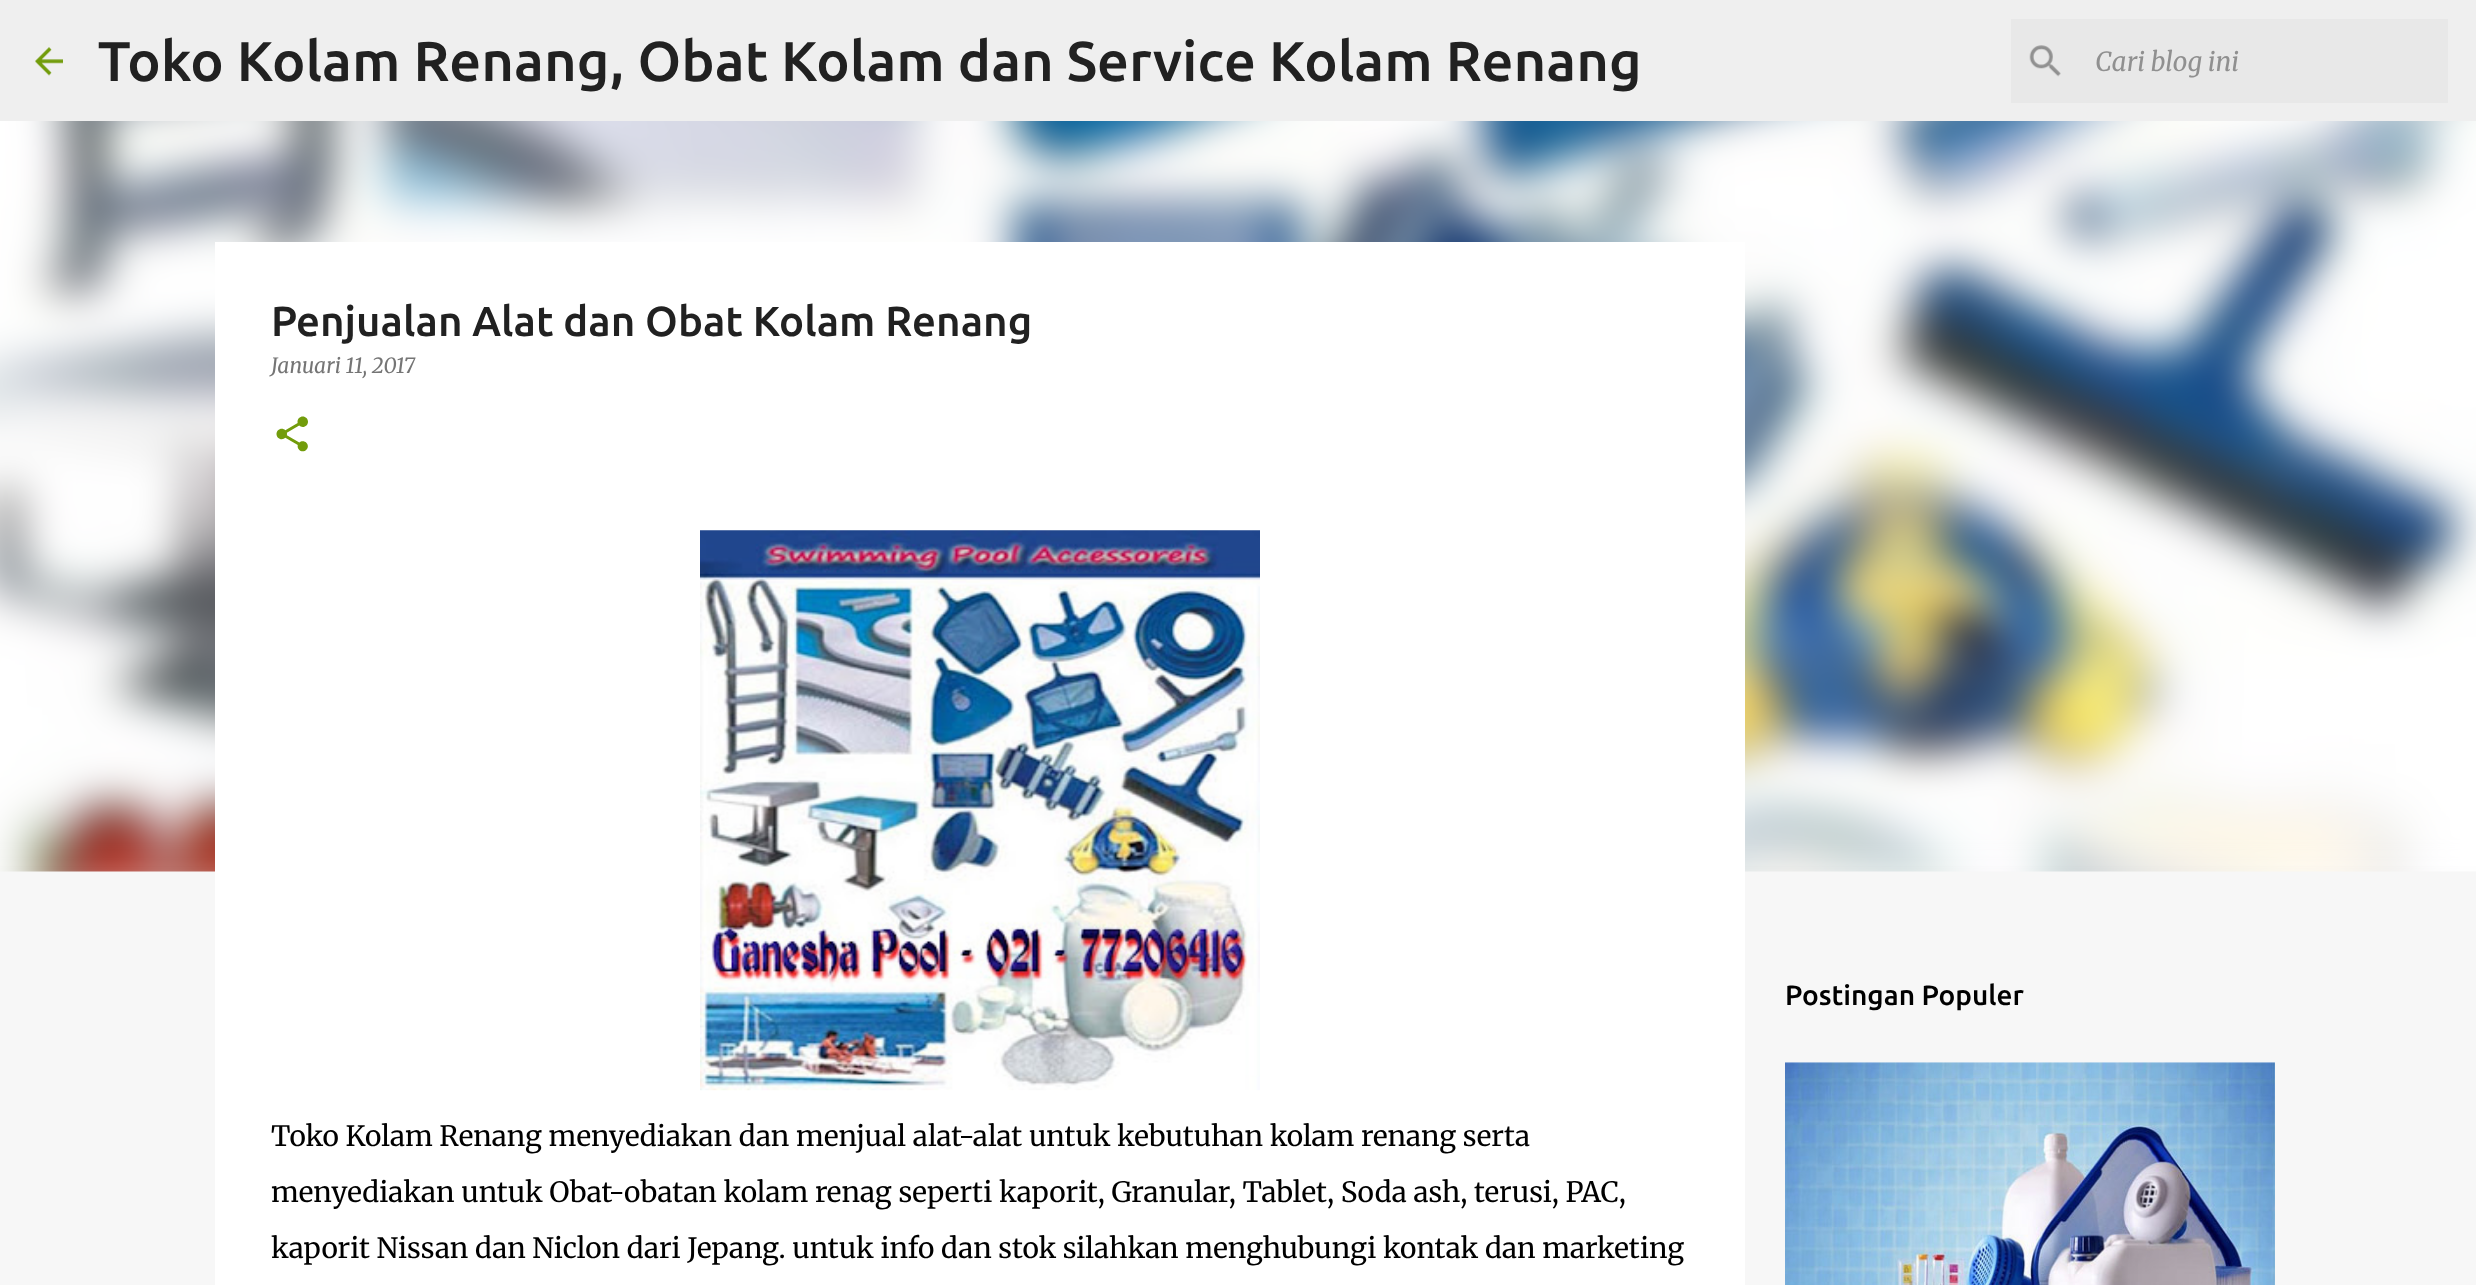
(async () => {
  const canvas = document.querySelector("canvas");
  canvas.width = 2476;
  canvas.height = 1285;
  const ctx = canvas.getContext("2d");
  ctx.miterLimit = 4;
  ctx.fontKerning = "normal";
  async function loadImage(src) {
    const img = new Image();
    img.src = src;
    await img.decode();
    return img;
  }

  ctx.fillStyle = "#f7f7f7";
  ctx.fillRect(0, 0, 2476, 1285);
  ctx.fillStyle = "#efefef";
  ctx.fillRect(0, 0, 2476, 121);
  ctx.drawImage(await loadImage("img/1.png"), 35, 47, 28, 29);
  ctx.fillStyle = "#e8e8e8";
  ctx.fillRect(2011, 19, 437, 84);
  ctx.drawImage(await loadImage("img/2.png"), 2029, 45, 32, 32);
  ctx.drawImage(await loadImage("img/6.png"), 0, 121, 2476, 751);
  ctx.fillStyle = "#ffffff";
  ctx.fillRect(215, 242, 1530, 1043);
  ctx.drawImage(await loadImage("img/3.png"), 276, 416, 32, 36);
  ctx.drawImage(await loadImage("img/4.png"), 700, 530, 560, 561);
  ctx.drawImage(await loadImage("img/5.png"), 1785, 1062, 490, 223);
  ctx.font = "500 56px Ubuntu";
  ctx.fillStyle = "#212121";
  ctx.fillText("Toko Kolam Renang, Obat Kolam dan Service Kolam Renang", 98, 81);
  ctx.font = "italic 300 26.25px Merriweather";
  ctx.fillStyle = "#909090";
  ctx.fillText("Cari blog ini", 2095, 71);
  ctx.font = "500 42px Ubuntu";
  ctx.fillStyle = "#212121";
  ctx.fillText("Penjualan Alat dan Obat Kolam Renang", 271, 336);
  ctx.font = "italic 300 21px Merriweather";
  ctx.fillStyle = "#757575";
  ctx.fillText("Januari 11, 2017", 271, 373);
  ctx.font = "300 28px Merriweather";
  ctx.fillStyle = "#000000";
  for (const [text, x, y] of [
    ["Toko Kolam Renang menyediakan dan menjual alat-alat untuk kebutuhan kolam renang serta", 271, 1146],
    ["menyediakan untuk Obat-obatan kolam renag seperti kaporit, Granular, Tablet, Soda ash, terusi, PAC,", 271, 1202],
    ["kaporit Nissan dan Niclon dari Jepang. untuk info dan stok silahkan menghubungi kontak dan marketing", 271, 1258],
  ]) {
    ctx.fillText(text, x, y);
  }
  ctx.font = "500 28px Ubuntu";
  ctx.fillText("Postingan Populer", 1785, 1005);
})();
